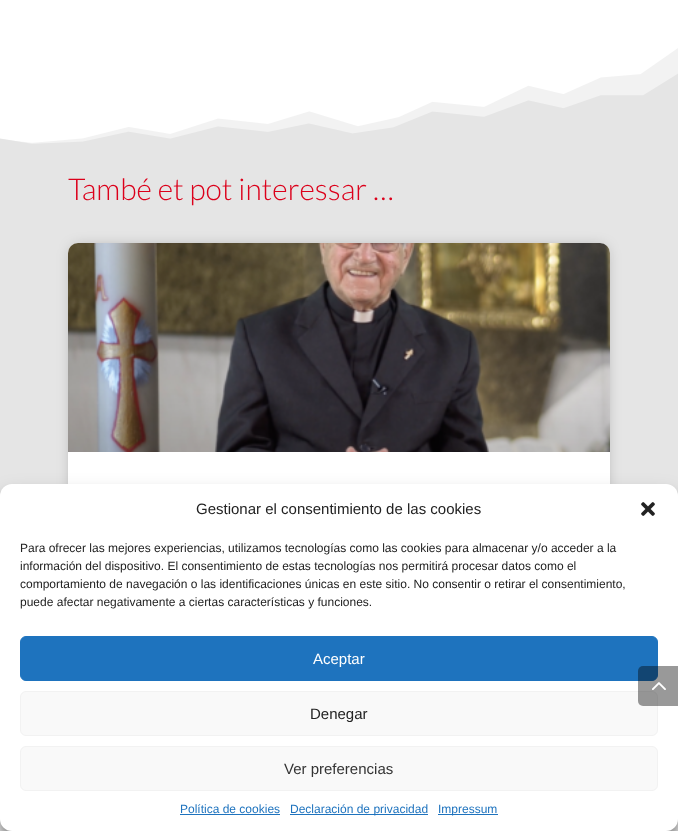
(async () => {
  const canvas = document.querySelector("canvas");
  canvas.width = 678;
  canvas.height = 831;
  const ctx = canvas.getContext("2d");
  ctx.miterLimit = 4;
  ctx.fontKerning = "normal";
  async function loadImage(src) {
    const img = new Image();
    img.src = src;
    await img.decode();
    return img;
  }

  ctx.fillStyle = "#ffffff";
  ctx.fillRect(0, 0, 678, 831);
  ctx.drawImage(await loadImage("img/1.png"), 0, 48, 678, 100);
  ctx.fillStyle = "#e5e5e5";
  ctx.fillRect(0, 148, 678, 683);
  ctx.fillStyle = "rgba(0, 0, 0, 0.3)";
  ctx.filter = "blur(7.5px)";
  ctx.beginPath();
  ctx.roundRect(73, 248, 532, 363, 5);
  ctx.fill();
  ctx.filter = "none";
  ctx.fillStyle = "#ffffff";
  ctx.beginPath();
  ctx.roundRect(68, 243, 542, 373, 10);
  ctx.fill();
  ctx.drawImage(await loadImage("img/2.png"), 68, 243, 542, 209);
  ctx.fillStyle = "rgba(0, 0, 0, 0.23)";
  ctx.filter = "blur(3px)";
  ctx.beginPath();
  ctx.roundRect(0, 490, 678, 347, 12);
  ctx.fill();
  ctx.filter = "none";
  ctx.fillStyle = "rgba(0, 0, 0, 0.19)";
  ctx.filter = "blur(10px)";
  ctx.beginPath();
  ctx.roundRect(0, 494, 678, 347, 12);
  ctx.fill();
  ctx.filter = "none";
  ctx.fillStyle = "#ffffff";
  ctx.beginPath();
  ctx.roundRect(0, 484, 678, 347, 12);
  ctx.fill();
  ctx.fillStyle = "#1e73be";
  ctx.beginPath();
  ctx.roundRect(20.5, 636.5, 637, 44, 5.5);
  ctx.fill();
  ctx.strokeStyle = "#1e73be";
  ctx.stroke();
  ctx.fillStyle = "#f9f9f9";
  ctx.beginPath();
  ctx.roundRect(20.5, 691.5, 637, 44, 5.5);
  ctx.fill();
  ctx.strokeStyle = "#f2f2f2";
  ctx.stroke();
  ctx.fillStyle = "rgba(0, 0, 0, 0.4)";
  ctx.beginPath();
  ctx.roundRect(638, 666, 40, 40, [5, 0, 0, 5]);
  ctx.fill();
  ctx.drawImage(await loadImage("img/3.png"), 652, 682, 14, 8);
  ctx.drawImage(await loadImage("img/4.png"), 641, 502, 14, 14);
  ctx.fillStyle = "#f9f9f9";
  ctx.beginPath();
  ctx.roundRect(20.5, 746.5, 637, 44, 5.5);
  ctx.fill();
  ctx.stroke();
  for (const [x, y, w, h, color] of [
    [180, 814, 100, 1, "#1e73be"],
    [290, 814, 138, 1, "#1e73be"],
    [438, 814, 60, 1, "#1e73be"],
  ]) {
    ctx.fillStyle = color;
    ctx.fillRect(x, y, w, h);
  }
  ctx.font = "300 30px Lato";
  ctx.fillStyle = "#dc001b";
  ctx.fillText("També et pot interessar …", 68, 200);
  ctx.font = "15px Liberation Sans";
  ctx.fillStyle = "#222222";
  ctx.fillText("Gestionar el consentimiento de las cookies", 196, 514);
  ctx.font = "12px Liberation Sans";
  for (const [text, x, y] of [
    ["Para ofrecer las mejores experiencias, utilizamos tecnologías como las cookies para almacenar y/o acceder a la", 20, 552],
    ["información del dispositivo. El consentimiento de estas tecnologías nos permitirá procesar datos como el", 20, 570],
    ["comportamiento de navegación o las identificaciones únicas en este sitio. No consentir o retirar el consentimiento,", 20, 588],
    ["puede afectar negativamente a ciertas características y funciones.", 20, 606],
  ]) {
    ctx.fillText(text, x, y);
  }
  ctx.font = "15px Liberation Sans";
  ctx.fillStyle = "#ffffff";
  ctx.fillText("Aceptar", 313, 664);
  ctx.fillStyle = "#222222";
  ctx.fillText("Denegar", 310, 719);
  ctx.fillStyle = "#333333";
  ctx.fillText("Ver preferencias", 284, 774);
  ctx.font = "12px Liberation Sans";
  ctx.fillStyle = "#1e73be";
  for (const [text, x, y] of [
    ["Política de cookies", 180, 813],
    ["Declaración de privacidad", 290, 813],
    ["Impressum", 438, 813],
  ]) {
    ctx.fillText(text, x, y);
  }
})();
